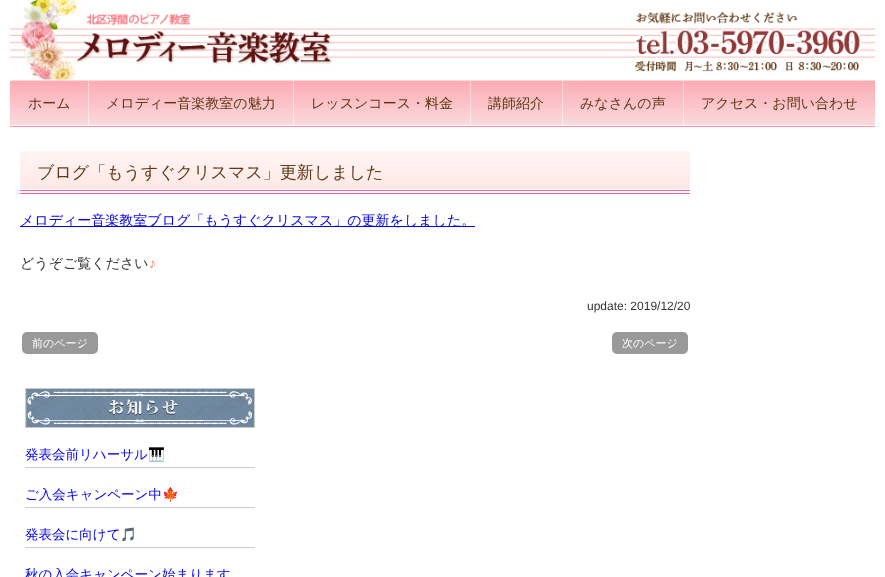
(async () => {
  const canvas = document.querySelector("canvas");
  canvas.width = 885;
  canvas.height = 577;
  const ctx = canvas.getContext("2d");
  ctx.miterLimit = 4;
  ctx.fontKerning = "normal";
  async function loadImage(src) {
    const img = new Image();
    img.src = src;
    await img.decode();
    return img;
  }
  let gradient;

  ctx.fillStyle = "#ffffff";
  ctx.fillRect(0, 0, 885, 577);
  ctx.drawImage(await loadImage("img/1.png"), 10, 0, 865, 81);
  gradient = ctx.createLinearGradient(443, 81, 443, 125);
  gradient.addColorStop(0, "#fcabb4");
  gradient.addColorStop(1, "#fadadd");
  ctx.fillStyle = gradient;
  ctx.fillRect(10, 81, 865, 44);
  gradient = ctx.createLinearGradient(443, 81, 443, 125);
  gradient.addColorStop(0, "#fed5da");
  gradient.addColorStop(1, "#fdedee");
  ctx.fillStyle = gradient;
  ctx.fillRect(683, 81, 1, 44);
  ctx.fillRect(562, 81, 1, 44);
  ctx.fillRect(470, 81, 1, 44);
  ctx.fillRect(293, 81, 1, 44);
  ctx.fillRect(88, 81, 1, 44);
  for (const [x, y, w, h, color] of [
    [10, 125, 865, 1, "#fef5f6"],
    [683, 125, 1, 1, "#fffafb"],
    [562, 125, 1, 1, "#fffafb"],
    [470, 125, 1, 1, "#fffafb"],
    [293, 125, 1, 1, "#fffafb"],
    [88, 125, 1, 1, "#fffafb"],
    [10, 126, 865, 1, "#ff93ad"],
  ]) {
    ctx.fillStyle = color;
    ctx.fillRect(x, y, w, h);
  }
  gradient = ctx.createLinearGradient(355, 151, 355, 189);
  gradient.addColorStop(0, "#fff5f4");
  gradient.addColorStop(1, "#ffe8e6");
  ctx.fillStyle = gradient;
  ctx.fillRect(20, 151, 670, 38);
  for (const [x, y, w, h, color] of [
    [20, 190, 670, 1, "#f96295"],
    [20, 193, 670, 1, "#f96295"],
    [20, 226, 455, 1, "#0000ee"],
  ]) {
    ctx.fillStyle = color;
    ctx.fillRect(x, y, w, h);
  }
  ctx.fillStyle = "#999999";
  ctx.beginPath();
  ctx.roundRect(22, 332, 76, 22, 5);
  ctx.fill();
  ctx.beginPath();
  ctx.roundRect(612, 332, 76, 22, 5);
  ctx.fill();
  ctx.drawImage(await loadImage("img/2.png"), 25, 388, 230, 40);
  for (const [x, y, w, h, color] of [
    [25, 467, 230, 1, "#cccccc"],
    [25, 507, 230, 1, "#cccccc"],
    [25, 547, 230, 1, "#cccccc"],
  ]) {
    ctx.fillStyle = color;
    ctx.fillRect(x, y, w, h);
  }
  ctx.font = "500 14px WenQuanYi Zen Hei";
  ctx.fillStyle = "#603813";
  for (const [text, x, y] of [
    ["ホーム", 28, 108],
    ["メロディー音楽教室の魅力", 106, 108],
    ["レッスンコース・料金", 311, 108],
    ["講師紹介", 488, 108],
    ["みなさんの声", 580, 108],
    ["アクセス・お問い合わせ", 701, 108],
  ]) {
    ctx.fillText(text, x, y);
  }
  ctx.font = "500 17px WenQuanYi Zen Hei";
  ctx.fillText("ブログ「もうすぐクリスマス」更新しました", 37, 178);
  ctx.font = "500 14px WenQuanYi Zen Hei";
  ctx.fillStyle = "#0000ee";
  ctx.fillText("メロディー音楽教室ブログ「もうすぐクリスマス」の更新をしました。", 20, 225);
  ctx.fillStyle = "#333333";
  ctx.fillText("どうぞご覧ください", 20, 268);
  ctx.font = "14px Liberation Sans";
  ctx.fillStyle = "#f58558";
  ctx.fillText("♪", 149, 268);
  ctx.font = "12px Liberation Sans";
  ctx.fillStyle = "#333333";
  ctx.fillText("update: 2019/12/20", 587, 310);
  ctx.font = "500 11px WenQuanYi Zen Hei";
  ctx.fillStyle = "#ffffff";
  ctx.fillText("前のページ", 32, 347);
  ctx.fillText("次のページ", 622, 347);
  ctx.font = "500 13.5px WenQuanYi Zen Hei";
  ctx.fillStyle = "#0000ee";
  ctx.fillText("発表会前リハーサル", 25, 459);
  ctx.font = "13.5px Noto Color Emoji";
  ctx.fillText("🎹", 148, 459);
  ctx.font = "500 13.5px WenQuanYi Zen Hei";
  ctx.fillText("ご入会キャンペーン中", 25, 499);
  ctx.font = "13.5px Noto Color Emoji";
  ctx.fillText("🍁", 162, 499);
  ctx.font = "500 13.5px WenQuanYi Zen Hei";
  ctx.fillText("発表会に向けて", 25, 539);
  ctx.font = "13.5px Noto Color Emoji";
  ctx.fillText("🎵", 120, 539);
  ctx.font = "500 13.5px WenQuanYi Zen Hei";
  ctx.fillText("秋の入会キャンペーン始まります", 25, 579);
})();
